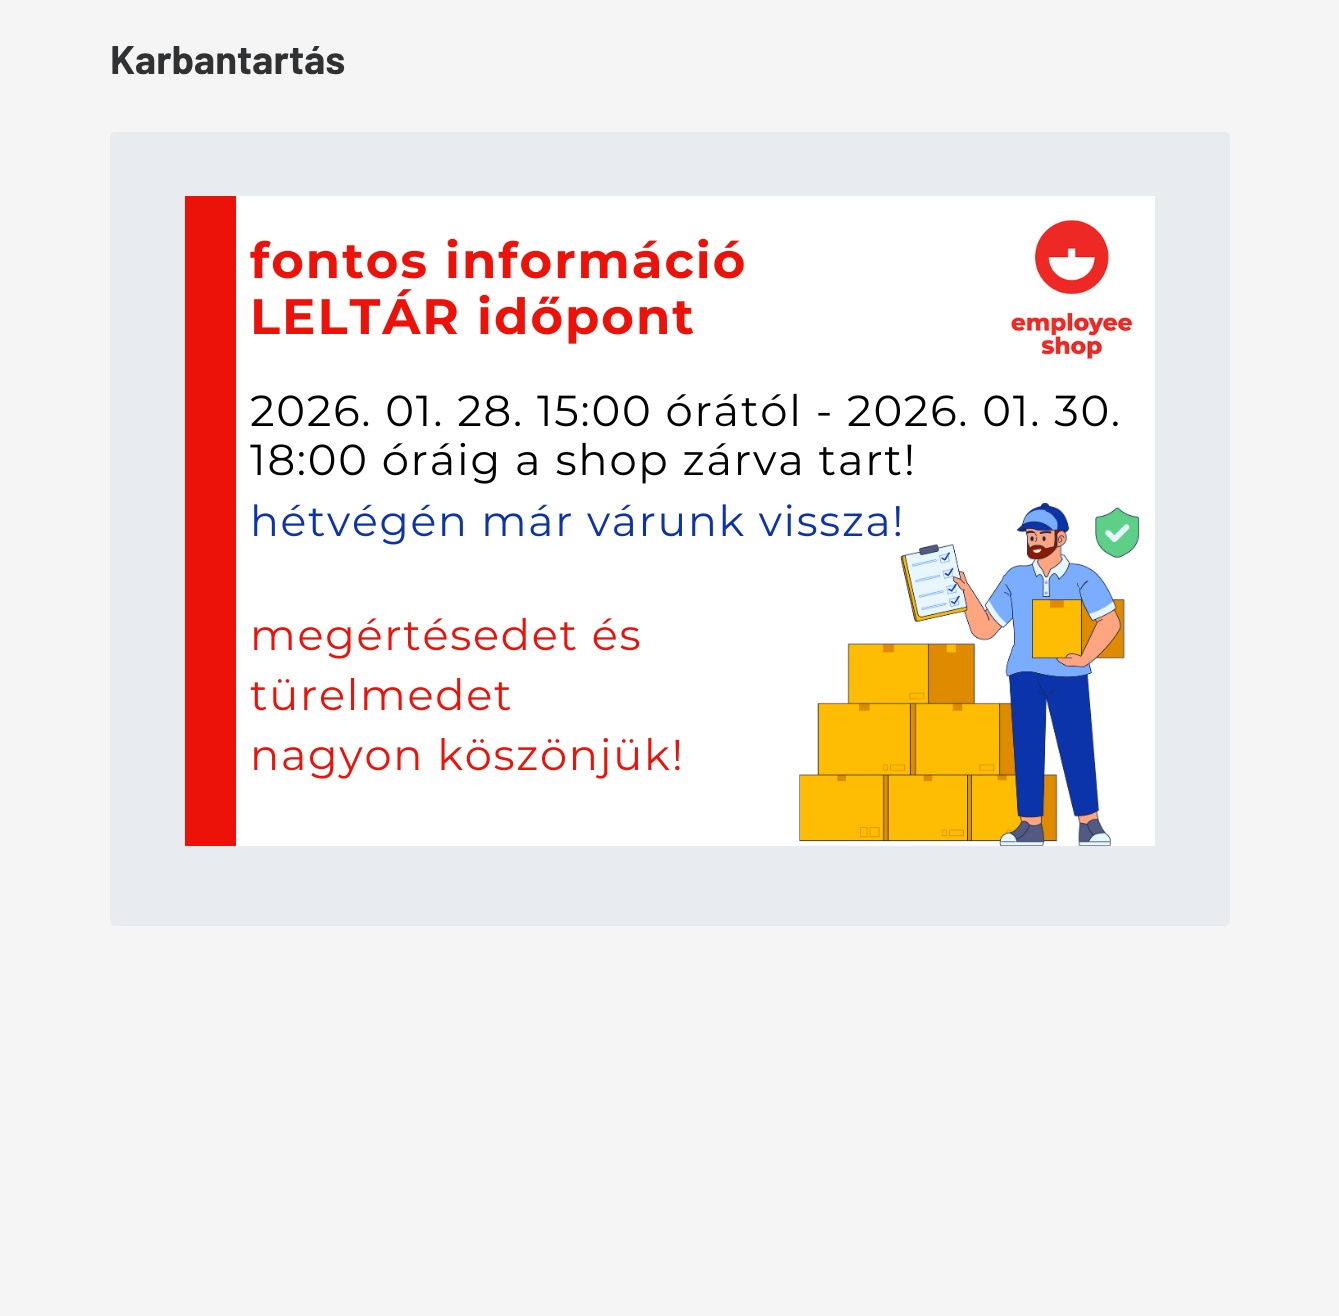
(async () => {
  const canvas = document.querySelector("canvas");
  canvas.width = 1339;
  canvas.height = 1316;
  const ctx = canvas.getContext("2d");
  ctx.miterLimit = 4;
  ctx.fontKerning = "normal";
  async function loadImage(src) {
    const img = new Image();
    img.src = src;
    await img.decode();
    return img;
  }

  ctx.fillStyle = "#f5f5f5";
  ctx.fillRect(0, 0, 1339, 1316);
  ctx.fillStyle = "#e9ecef";
  ctx.beginPath();
  ctx.roundRect(110, 132, 1120, 794, 5);
  ctx.fill();
  ctx.drawImage(await loadImage("img/1.png"), 185, 196, 970, 650);
  ctx.font = "bold 40px Barlow";
  ctx.fillStyle = "#2f3132";
  ctx.fillText("Karbantartás", 110, 74);
})();
